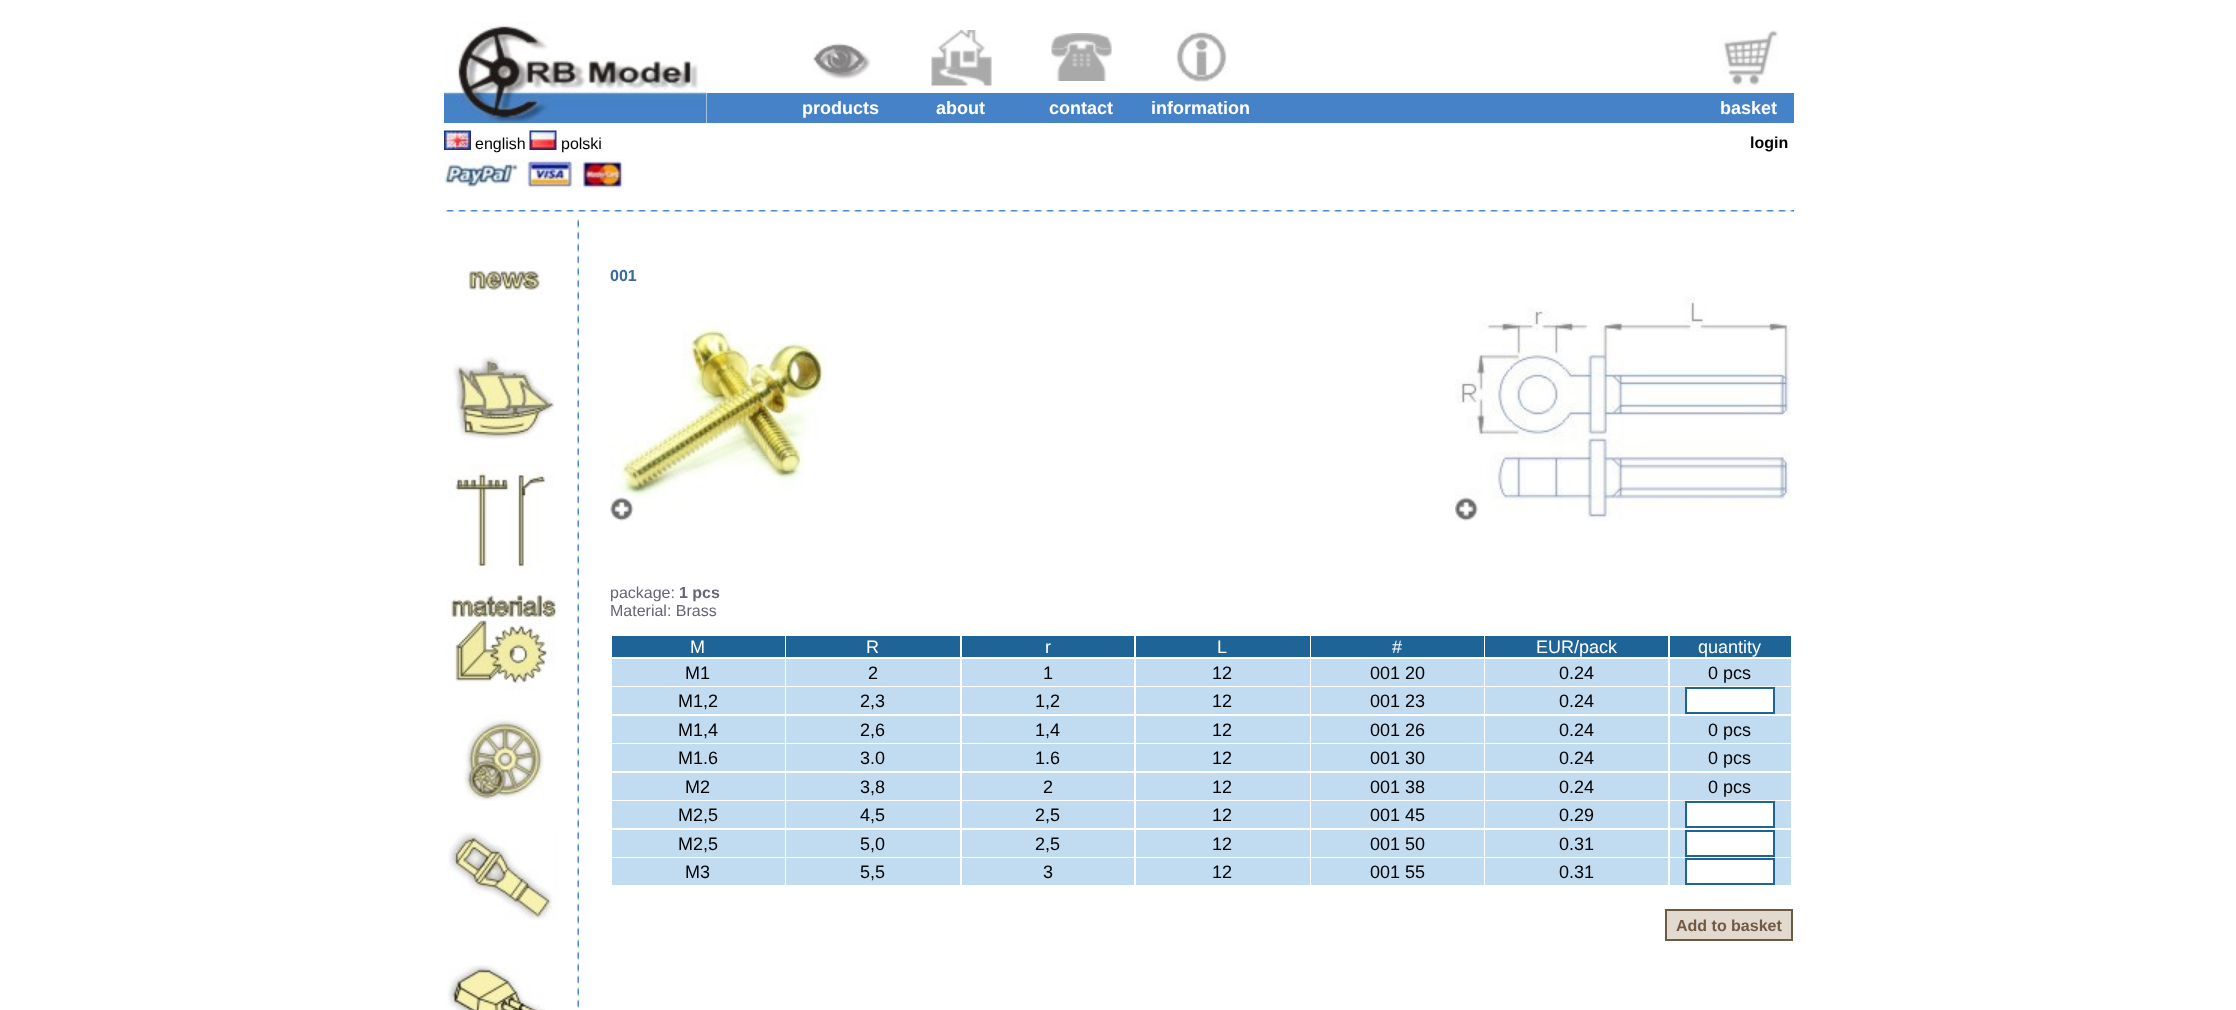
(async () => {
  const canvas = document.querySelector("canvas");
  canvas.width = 2236;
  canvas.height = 1010;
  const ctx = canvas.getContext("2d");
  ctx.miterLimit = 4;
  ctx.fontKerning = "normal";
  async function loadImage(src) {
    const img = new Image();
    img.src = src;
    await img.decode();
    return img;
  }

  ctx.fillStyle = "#ffffff";
  ctx.fillRect(0, 0, 2236, 1010);
  ctx.drawImage(await loadImage("img/1.png"), 444, 21, 263, 102);
  ctx.drawImage(await loadImage("img/2.png"), 812, 42, 59, 38);
  ctx.drawImage(await loadImage("img/3.png"), 931, 30, 61, 56);
  ctx.drawImage(await loadImage("img/4.png"), 1051, 33, 61, 48);
  ctx.drawImage(await loadImage("img/5.png"), 1176, 29, 54, 53);
  ctx.drawImage(await loadImage("img/6.png"), 1719, 30, 60, 57);
  ctx.fillStyle = "#4682c8";
  ctx.fillRect(707, 93, 1087, 30);
  ctx.drawImage(await loadImage("img/7.png"), 444, 130, 27, 20);
  ctx.drawImage(await loadImage("img/8.png"), 529, 130, 28, 20);
  ctx.drawImage(await loadImage("img/9.png"), 444, 159, 182, 30);
  ctx.drawImage(await loadImage("img/10.png"), 444, 210, 1350, 2);
  ctx.drawImage(await loadImage("img/11.png"), 463, 270, 80, 26);
  ctx.drawImage(await loadImage("img/12.png"), 447, 355, 108, 85);
  ctx.drawImage(await loadImage("img/13.png"), 448, 463, 107, 112);
  ctx.drawImage(await loadImage("img/14.png"), 447, 593, 111, 97);
  ctx.drawImage(await loadImage("img/15.png"), 463, 714, 81, 87);
  ctx.drawImage(await loadImage("img/16.png"), 447, 830, 112, 90);
  ctx.drawImage(await loadImage("img/17.png"), 447, 965, 98, 45);
  ctx.drawImage(await loadImage("img/18.png"), 577, 219, 2, 790);
  ctx.drawImage(await loadImage("img/19.png"), 610, 320, 217, 201);
  ctx.drawImage(await loadImage("img/20.png"), 1455, 295, 337, 226);
  for (const [x, y, w, h, color] of [
    [612, 636, 173, 21, "#1e6496"],
    [786, 636, 174, 21, "#1e6496"],
    [962, 636, 172, 21, "#1e6496"],
    [1136, 636, 174, 21, "#1e6496"],
    [1311, 636, 173, 21, "#1e6496"],
    [1485, 636, 183, 21, "#1e6496"],
    [1670, 636, 121, 21, "#1e6496"],
    [612, 659, 173, 27, "#c1dbf0"],
    [786, 659, 174, 27, "#c1dbf0"],
    [962, 659, 172, 27, "#c1dbf0"],
    [1136, 659, 174, 27, "#c1dbf0"],
    [1311, 659, 173, 27, "#c1dbf0"],
    [1485, 659, 183, 27, "#c1dbf0"],
    [1670, 659, 121, 27, "#c1dbf0"],
    [612, 687, 173, 27, "#c1dbf0"],
    [786, 687, 174, 27, "#c1dbf0"],
    [962, 687, 172, 27, "#c1dbf0"],
    [1136, 687, 174, 27, "#c1dbf0"],
    [1311, 687, 173, 27, "#c1dbf0"],
    [1485, 687, 183, 27, "#c1dbf0"],
    [1670, 687, 121, 27, "#c1dbf0"],
  ]) {
    ctx.fillStyle = color;
    ctx.fillRect(x, y, w, h);
  }
  ctx.fillStyle = "#ffffff";
  ctx.beginPath();
  ctx.rect(1686, 688, 88, 25);
  ctx.fill();
  ctx.strokeStyle = "#1e6496";
  ctx.lineWidth = 2;
  ctx.stroke();
  for (const [x, y, w, h, color] of [
    [612, 716, 173, 27, "#c1dbf0"],
    [786, 716, 174, 27, "#c1dbf0"],
    [962, 716, 172, 27, "#c1dbf0"],
    [1136, 716, 174, 27, "#c1dbf0"],
    [1311, 716, 173, 27, "#c1dbf0"],
    [1485, 716, 183, 27, "#c1dbf0"],
    [1670, 716, 121, 27, "#c1dbf0"],
    [612, 744, 173, 27, "#c1dbf0"],
    [786, 744, 174, 27, "#c1dbf0"],
    [962, 744, 172, 27, "#c1dbf0"],
    [1136, 744, 174, 27, "#c1dbf0"],
    [1311, 744, 173, 27, "#c1dbf0"],
    [1485, 744, 183, 27, "#c1dbf0"],
    [1670, 744, 121, 27, "#c1dbf0"],
    [612, 773, 173, 27, "#c1dbf0"],
    [786, 773, 174, 27, "#c1dbf0"],
    [962, 773, 172, 27, "#c1dbf0"],
    [1136, 773, 174, 27, "#c1dbf0"],
    [1311, 773, 173, 27, "#c1dbf0"],
    [1485, 773, 183, 27, "#c1dbf0"],
    [1670, 773, 121, 27, "#c1dbf0"],
    [612, 801, 173, 27, "#c1dbf0"],
    [786, 801, 174, 27, "#c1dbf0"],
    [962, 801, 172, 27, "#c1dbf0"],
    [1136, 801, 174, 27, "#c1dbf0"],
    [1311, 801, 173, 27, "#c1dbf0"],
    [1485, 801, 183, 27, "#c1dbf0"],
    [1670, 801, 121, 27, "#c1dbf0"],
  ]) {
    ctx.fillStyle = color;
    ctx.fillRect(x, y, w, h);
  }
  ctx.fillStyle = "#ffffff";
  ctx.beginPath();
  ctx.rect(1686, 802, 88, 25);
  ctx.fill();
  ctx.stroke();
  for (const [x, y, w, h, color] of [
    [612, 830, 173, 27, "#c1dbf0"],
    [786, 830, 174, 27, "#c1dbf0"],
    [962, 830, 172, 27, "#c1dbf0"],
    [1136, 830, 174, 27, "#c1dbf0"],
    [1311, 830, 173, 27, "#c1dbf0"],
    [1485, 830, 183, 27, "#c1dbf0"],
    [1670, 830, 121, 27, "#c1dbf0"],
  ]) {
    ctx.fillStyle = color;
    ctx.fillRect(x, y, w, h);
  }
  ctx.fillStyle = "#ffffff";
  ctx.beginPath();
  ctx.rect(1686, 831, 88, 25);
  ctx.fill();
  ctx.stroke();
  for (const [x, y, w, h, color] of [
    [612, 858, 173, 27, "#c1dbf0"],
    [786, 858, 174, 27, "#c1dbf0"],
    [962, 858, 172, 27, "#c1dbf0"],
    [1136, 858, 174, 27, "#c1dbf0"],
    [1311, 858, 173, 27, "#c1dbf0"],
    [1485, 858, 183, 27, "#c1dbf0"],
    [1670, 858, 121, 27, "#c1dbf0"],
  ]) {
    ctx.fillStyle = color;
    ctx.fillRect(x, y, w, h);
  }
  ctx.fillStyle = "#ffffff";
  ctx.beginPath();
  ctx.rect(1686, 859, 88, 25);
  ctx.fill();
  ctx.stroke();
  ctx.fillStyle = "#e2d9cf";
  ctx.beginPath();
  ctx.rect(1666, 910, 126, 30);
  ctx.fill();
  ctx.strokeStyle = "#705943";
  ctx.stroke();
  ctx.font = "bold 18px Liberation Sans";
  ctx.fillStyle = "#ffffff";
  for (const [text, x, y] of [
    ["products", 802, 114],
    ["about", 936, 114],
    ["contact", 1049, 114],
    ["information", 1151, 114],
    ["basket", 1720, 114],
  ]) {
    ctx.fillText(text, x, y);
  }
  ctx.font = "16px Liberation Sans";
  ctx.fillStyle = "#000000";
  ctx.fillText("english", 475, 149);
  ctx.fillText("polski", 561, 149);
  ctx.font = "bold 16px Liberation Sans";
  ctx.fillText("login", 1750, 148);
  ctx.fillStyle = "#386b9e";
  ctx.fillText("001", 610, 281);
  ctx.font = "16px Liberation Sans";
  ctx.fillStyle = "#656674";
  ctx.fillText("package:", 610, 598);
  ctx.font = "bold 16px Liberation Sans";
  ctx.fillText("1 pcs", 679, 598);
  ctx.font = "16px Liberation Sans";
  ctx.fillText("Material: Brass", 610, 616);
  ctx.font = "18px Liberation Sans";
  ctx.fillStyle = "#ffffff";
  for (const [text, x, y] of [
    ["M", 690, 653],
    ["R", 866, 653],
    ["r", 1045, 653],
    ["L", 1217, 653],
    ["#", 1392, 653],
    ["EUR/pack", 1536, 653],
    ["quantity", 1698, 653],
  ]) {
    ctx.fillText(text, x, y);
  }
  ctx.fillStyle = "#000000";
  for (const [text, x, y] of [
    ["M1", 685, 679],
    ["2", 868, 679],
    ["1", 1043, 679],
    ["12", 1212, 679],
    ["001 20", 1370, 679],
    ["0.24", 1559, 679],
    ["0 pcs", 1708, 679],
    ["M1,2", 678, 707],
    ["2,3", 860, 707],
    ["1,2", 1035, 707],
    ["12", 1212, 707],
    ["001 23", 1370, 707],
    ["0.24", 1559, 707],
    ["M1,4", 678, 736],
    ["2,6", 860, 736],
    ["1,4", 1035, 736],
    ["12", 1212, 736],
    ["001 26", 1370, 736],
    ["0.24", 1559, 736],
    ["0 pcs", 1708, 736],
    ["M1.6", 678, 764],
    ["3.0", 860, 764],
    ["1.6", 1035, 764],
    ["12", 1212, 764],
    ["001 30", 1370, 764],
    ["0.24", 1559, 764],
    ["0 pcs", 1708, 764],
    ["M2", 685, 793],
    ["3,8", 860, 793],
    ["2", 1043, 793],
    ["12", 1212, 793],
    ["001 38", 1370, 793],
    ["0.24", 1559, 793],
    ["0 pcs", 1708, 793],
    ["M2,5", 678, 821],
    ["4,5", 860, 821],
    ["2,5", 1035, 821],
    ["12", 1212, 821],
    ["001 45", 1370, 821],
    ["0.29", 1559, 821],
    ["M2,5", 678, 850],
    ["5,0", 860, 850],
    ["2,5", 1035, 850],
    ["12", 1212, 850],
    ["001 50", 1370, 850],
    ["0.31", 1559, 850],
    ["M3", 685, 878],
    ["5,5", 860, 878],
    ["3", 1043, 878],
    ["12", 1212, 878],
    ["001 55", 1370, 878],
    ["0.31", 1559, 878],
  ]) {
    ctx.fillText(text, x, y);
  }
  ctx.font = "bold 16px Liberation Sans";
  ctx.fillStyle = "#705943";
  ctx.fillText("Add to basket", 1676, 931);
})();
